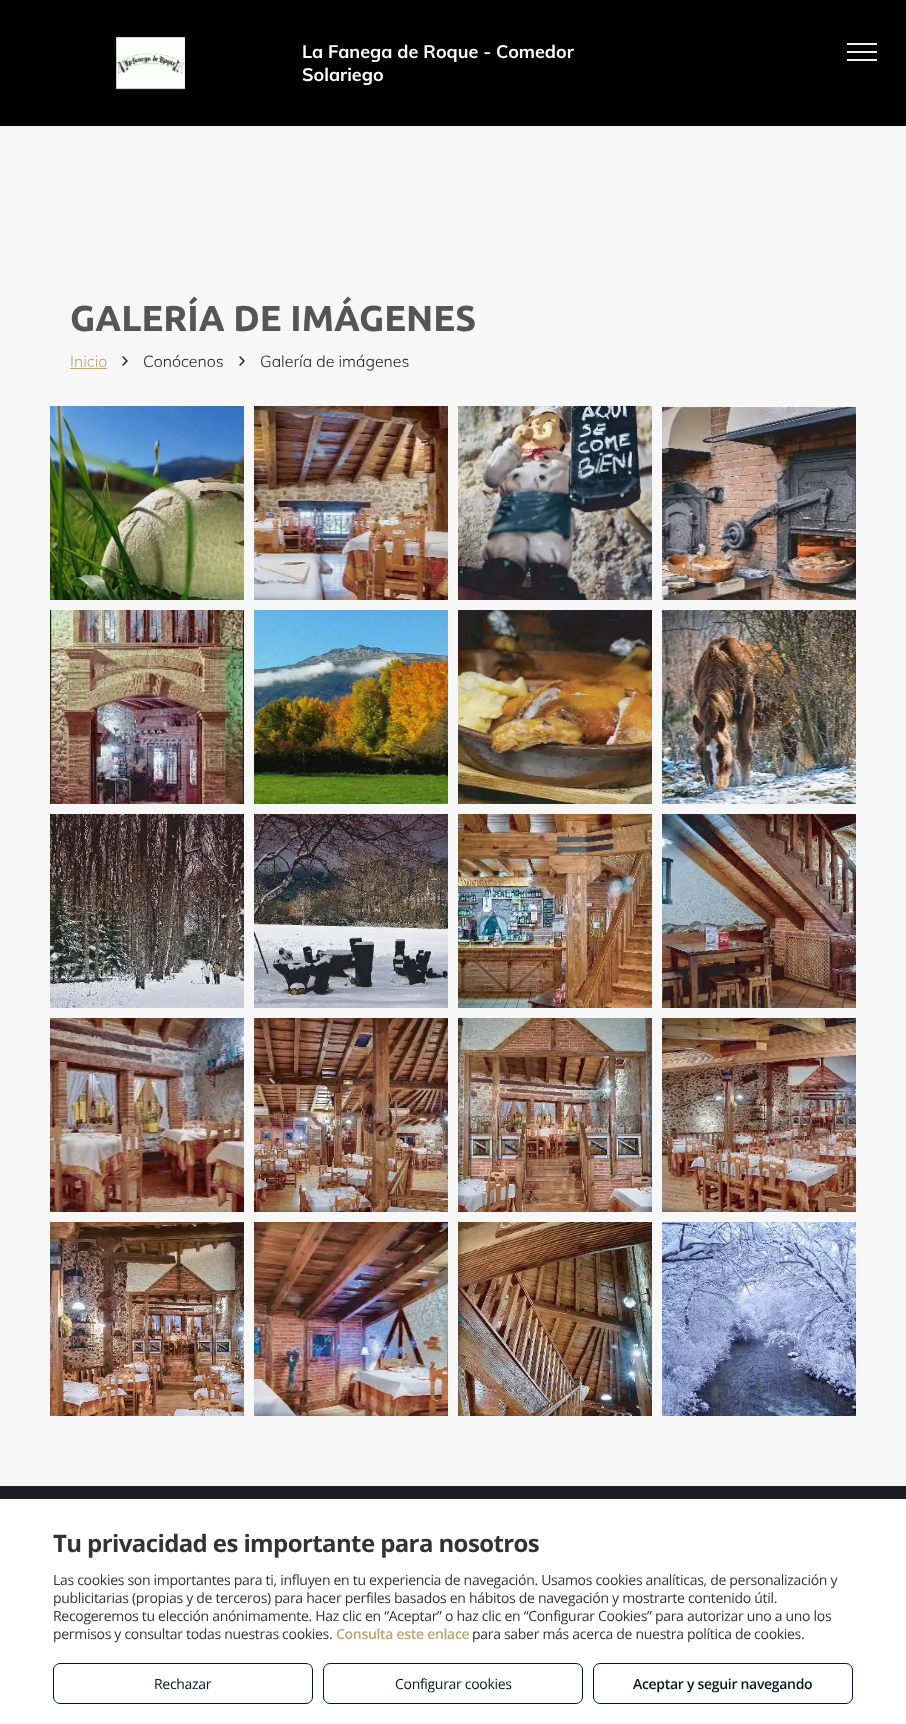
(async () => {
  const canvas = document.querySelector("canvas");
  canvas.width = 906;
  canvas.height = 1724;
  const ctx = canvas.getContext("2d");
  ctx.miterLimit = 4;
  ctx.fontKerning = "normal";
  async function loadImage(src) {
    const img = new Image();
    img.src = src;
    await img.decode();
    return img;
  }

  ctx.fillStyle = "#f7f7f7";
  ctx.fillRect(0, 0, 906, 1724);
  ctx.fillStyle = "#000000";
  ctx.fillRect(0, 0, 906, 126);
  ctx.drawImage(await loadImage("img/1.png"), 116, 37, 70, 53);
  for (const [x, y, w, h, color] of [
    [847, 43, 30, 2, "#f0f0f0"],
    [847, 51, 30, 2, "#f0f0f0"],
    [847, 59, 30, 2, "#f0f0f0"],
    [70, 368, 37, 1, "#baa778"],
  ]) {
    ctx.fillStyle = color;
    ctx.fillRect(x, y, w, h);
  }
  ctx.drawImage(await loadImage("img/2.png"), 122, 356, 6, 10);
  ctx.drawImage(await loadImage("img/2.png"), 239, 356, 6, 10);
  ctx.drawImage(await loadImage("img/3.png"), 50, 406, 194, 194);
  ctx.drawImage(await loadImage("img/4.png"), 254, 406, 194, 194);
  ctx.drawImage(await loadImage("img/5.png"), 458, 406, 194, 194);
  ctx.drawImage(await loadImage("img/6.png"), 662, 406, 194, 194);
  ctx.drawImage(await loadImage("img/7.png"), 50, 610, 194, 194);
  ctx.drawImage(await loadImage("img/8.png"), 254, 610, 194, 194);
  ctx.drawImage(await loadImage("img/9.png"), 458, 610, 194, 194);
  ctx.drawImage(await loadImage("img/10.png"), 662, 610, 194, 194);
  ctx.drawImage(await loadImage("img/11.png"), 50, 814, 194, 194);
  ctx.drawImage(await loadImage("img/12.png"), 254, 814, 194, 194);
  ctx.drawImage(await loadImage("img/13.png"), 458, 814, 194, 194);
  ctx.drawImage(await loadImage("img/14.png"), 662, 814, 194, 194);
  ctx.drawImage(await loadImage("img/15.png"), 50, 1018, 194, 194);
  ctx.drawImage(await loadImage("img/16.png"), 254, 1018, 194, 194);
  ctx.drawImage(await loadImage("img/17.png"), 458, 1018, 194, 194);
  ctx.drawImage(await loadImage("img/18.png"), 662, 1018, 194, 194);
  ctx.drawImage(await loadImage("img/19.png"), 50, 1222, 194, 194);
  ctx.drawImage(await loadImage("img/20.png"), 254, 1222, 194, 194);
  ctx.drawImage(await loadImage("img/21.png"), 458, 1222, 194, 194);
  ctx.drawImage(await loadImage("img/22.png"), 662, 1222, 194, 194);
  ctx.fillStyle = "#1b1e28";
  ctx.fillRect(0, 1486, 906, 13);
  ctx.fillStyle = "rgba(0, 0, 0, 0.1)";
  ctx.filter = "blur(5px)";
  ctx.beginPath();
  ctx.rect(0, 1497, 906, 225);
  ctx.fill();
  ctx.filter = "none";
  ctx.fillStyle = "#ffffff";
  ctx.fillRect(0, 1499, 906, 225);
  ctx.beginPath();
  ctx.roundRect(53.5, 1663.5, 259, 40, 6.5);
  ctx.strokeStyle = "#03181e";
  ctx.stroke();
  ctx.beginPath();
  ctx.roundRect(323.5, 1663.5, 259, 40, 6.5);
  ctx.stroke();
  ctx.beginPath();
  ctx.roundRect(593.5, 1663.5, 259, 40, 6.5);
  ctx.stroke();
  ctx.font = "bold 18px Muli";
  ctx.fillText("La Fanega de Roque - Comedor", 302, 58);
  ctx.fillText("Solariego", 302, 81);
  ctx.font = "bold 36px Ubuntu";
  ctx.fillStyle = "#555555";
  ctx.fillText("GALERÍA DE IMÁGENES", 70, 331);
  ctx.font = "300 16px Muli";
  ctx.fillStyle = "#baa778";
  ctx.fillText("Inicio", 70, 367);
  ctx.fillStyle = "#232323";
  ctx.fillText("Conócenos", 143, 367);
  ctx.fillText("Galería de imágenes", 260, 367);
  ctx.letterSpacing = "-0.6px";
  ctx.font = "bold 24px Open Sans";
  ctx.fillStyle = "#333333";
  ctx.fillText("Tu privacidad es importante para nosotros", 53, 1552);
  ctx.letterSpacing = "-0.3px";
  ctx.font = "14px Open Sans";
  for (const [text, x, y] of [
    ["Las cookies son importantes para ti, influyen en tu experiencia de navegación. Usamos cookies analíticas, de personalización y", 53, 1585],
    ["publicitarias (propias y de terceros) para hacer perfiles basados en hábitos de navegación y mostrarte contenido útil.", 53, 1603],
    ["Recogeremos tu elección anónimamente. Haz clic en “Aceptar” o haz clic en “Configurar Cookies” para autorizar uno a uno los", 53, 1621],
    ["permisos y consultar todas nuestras cookies.", 53, 1639],
  ]) {
    ctx.fillText(text, x, y);
  }
  ctx.font = "600 14px Open Sans";
  ctx.fillStyle = "#baa778";
  ctx.fillText("Consulta este enlace", 336, 1639);
  ctx.font = "14px Open Sans";
  ctx.fillStyle = "#333333";
  ctx.fillText("para saber más acerca de nuestra política de cookies.", 472, 1639);
  ctx.fillStyle = "#03181e";
  ctx.fillText("Rechazar", 154, 1689);
  ctx.fillText("Configurar cookies", 395, 1689);
  ctx.font = "600 14px Open Sans";
  ctx.fillText("Aceptar y seguir navegando", 633, 1689);
})();
